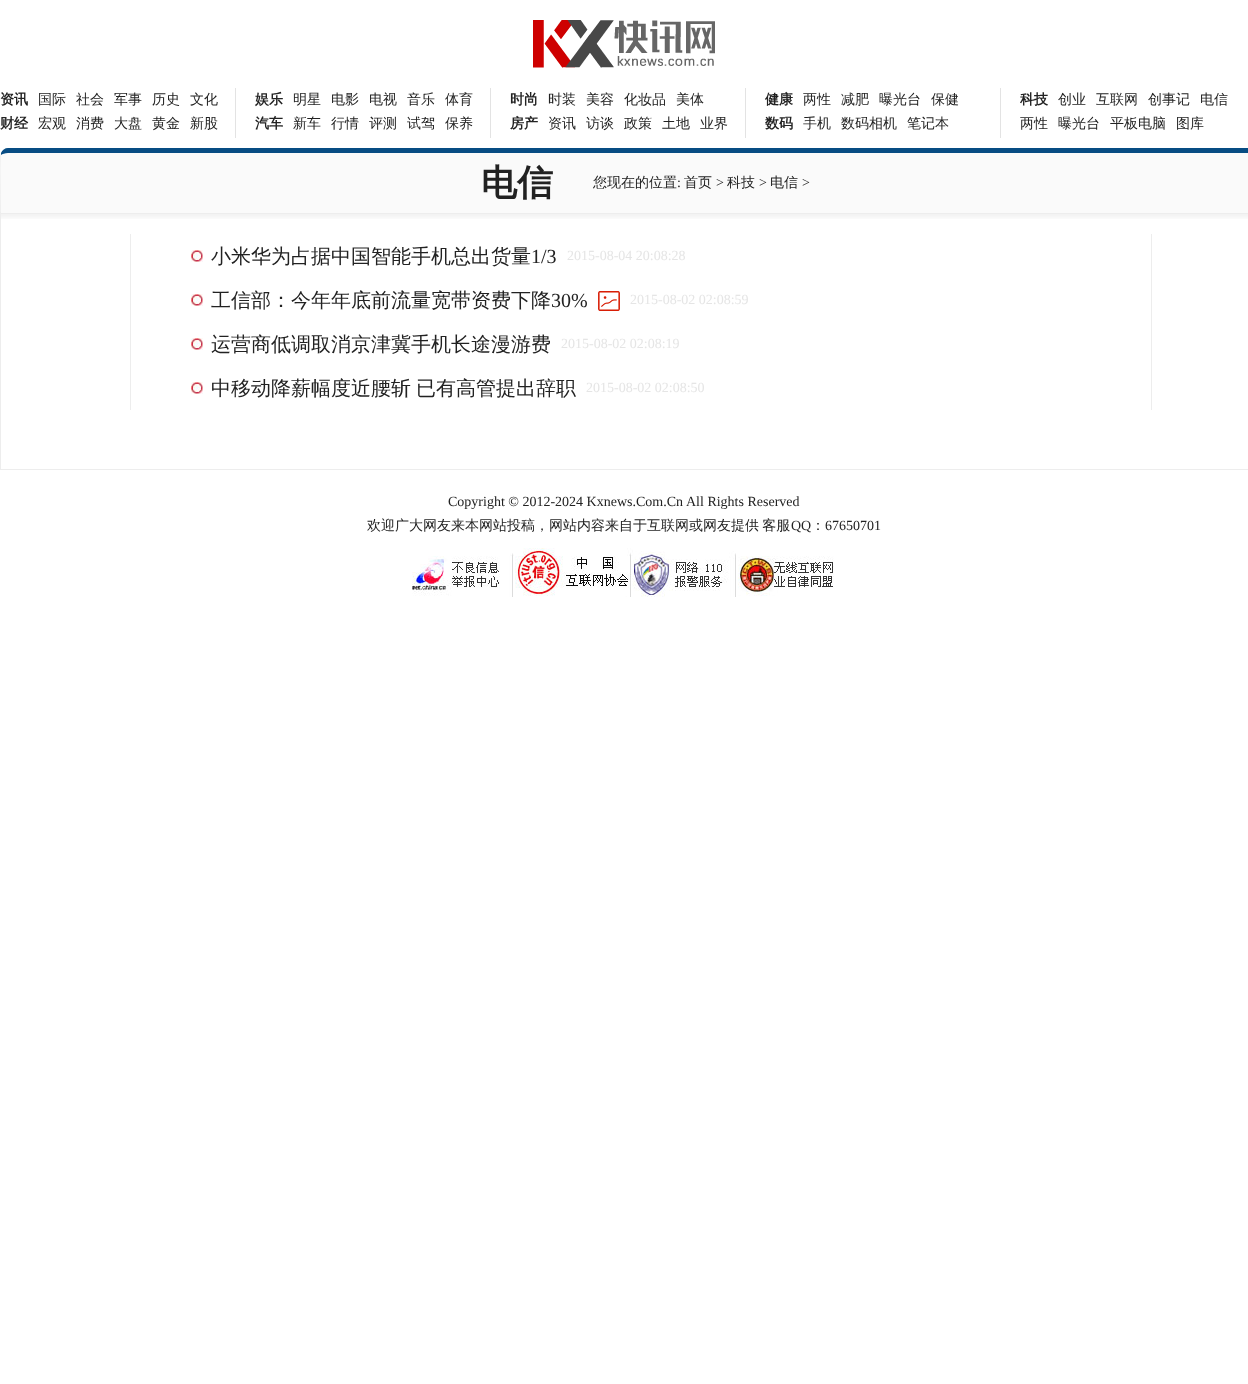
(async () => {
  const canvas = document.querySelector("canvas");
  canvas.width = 1248;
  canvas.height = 1384;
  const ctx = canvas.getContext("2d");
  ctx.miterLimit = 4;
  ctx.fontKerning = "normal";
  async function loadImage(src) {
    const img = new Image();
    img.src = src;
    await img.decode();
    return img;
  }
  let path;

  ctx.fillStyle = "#ffffff";
  ctx.fillRect(0, 0, 1248, 1384);
  ctx.drawImage(await loadImage("img/1.png"), 533, 20, 182, 48);
  for (const [x, y, w, h, color] of [
    [235, 88, 1, 50, "#e3e3e3"],
    [490, 88, 1, 50, "#e3e3e3"],
    [745, 88, 1, 50, "#e3e3e3"],
    [1000, 88, 1, 50, "#e3e3e3"],
  ]) {
    ctx.fillStyle = color;
    ctx.fillRect(x, y, w, h);
  }
  ctx.fillStyle = "#fafafa";
  path = new Path2D("M8 148H1248C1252.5 148 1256 151.5 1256 156V213H0V156C0 151.5 3.5 148 8 148Z");
  ctx.fill(path);
  ctx.fillStyle = "#074c83";
  path = new Path2D("M8 148C5 148 2 150 1 153V155C2 154 5 153 8 153H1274C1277 153 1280 154 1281 155V153C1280 150 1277 148 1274 148Z");
  ctx.fill(path);
  ctx.fillStyle = "#ededed";
  path = new Path2D("M0 213H1C1 207 0 157 1 155V153L0 156Z");
  ctx.fill(path);
  ctx.drawImage(await loadImage("img/2.png"), 1, 214, 1247, 5);
  ctx.strokeStyle = "#ededed";
  ctx.strokeRect(0.5, 213.5, 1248, 256);
  ctx.fillRect(1151, 234, 1, 176);
  ctx.fillRect(130, 234, 1, 176);
  ctx.drawImage(await loadImage("img/3.png"), 191, 250, 12, 12);
  ctx.drawImage(await loadImage("img/3.png"), 191, 294, 12, 12);
  ctx.drawImage(await loadImage("img/4.png"), 598, 291, 22, 20);
  ctx.drawImage(await loadImage("img/3.png"), 191, 338, 12, 12);
  ctx.drawImage(await loadImage("img/3.png"), 191, 382, 12, 12);
  ctx.drawImage(await loadImage("img/5.png"), 412, 553, 102, 44);
  ctx.drawImage(await loadImage("img/6.png"), 515, 548, 118, 49);
  ctx.drawImage(await loadImage("img/7.png"), 633, 551, 103, 46);
  ctx.drawImage(await loadImage("img/8.png"), 738, 556, 96, 40);
  ctx.font = "bold 14px WenQuanYi Zen Hei";
  ctx.fillStyle = "#222222";
  ctx.fillText("资讯", 0, 104);
  ctx.font = "500 14px WenQuanYi Zen Hei";
  for (const [text, x, y] of [
    ["国际", 38, 104],
    ["社会", 76, 104],
    ["军事", 114, 104],
    ["历史", 152, 104],
    ["文化", 190, 104],
  ]) {
    ctx.fillText(text, x, y);
  }
  ctx.font = "bold 14px WenQuanYi Zen Hei";
  ctx.fillText("财经", 0, 128);
  ctx.font = "500 14px WenQuanYi Zen Hei";
  for (const [text, x, y] of [
    ["宏观", 38, 128],
    ["消费", 76, 128],
    ["大盘", 114, 128],
    ["黄金", 152, 128],
    ["新股", 190, 128],
  ]) {
    ctx.fillText(text, x, y);
  }
  ctx.font = "bold 14px WenQuanYi Zen Hei";
  ctx.fillText("娱乐", 255, 104);
  ctx.font = "500 14px WenQuanYi Zen Hei";
  for (const [text, x, y] of [
    ["明星", 293, 104],
    ["电影", 331, 104],
    ["电视", 369, 104],
    ["音乐", 407, 104],
    ["体育", 445, 104],
  ]) {
    ctx.fillText(text, x, y);
  }
  ctx.font = "bold 14px WenQuanYi Zen Hei";
  ctx.fillText("汽车", 255, 128);
  ctx.font = "500 14px WenQuanYi Zen Hei";
  for (const [text, x, y] of [
    ["新车", 293, 128],
    ["行情", 331, 128],
    ["评测", 369, 128],
    ["试驾", 407, 128],
    ["保养", 445, 128],
  ]) {
    ctx.fillText(text, x, y);
  }
  ctx.font = "bold 14px WenQuanYi Zen Hei";
  ctx.fillText("时尚", 510, 104);
  ctx.font = "500 14px WenQuanYi Zen Hei";
  for (const [text, x, y] of [
    ["时装", 548, 104],
    ["美容", 586, 104],
    ["化妆品", 624, 104],
    ["美体", 676, 104],
  ]) {
    ctx.fillText(text, x, y);
  }
  ctx.font = "bold 14px WenQuanYi Zen Hei";
  ctx.fillText("房产", 510, 128);
  ctx.font = "500 14px WenQuanYi Zen Hei";
  for (const [text, x, y] of [
    ["资讯", 548, 128],
    ["访谈", 586, 128],
    ["政策", 624, 128],
    ["土地", 662, 128],
    ["业界", 700, 128],
  ]) {
    ctx.fillText(text, x, y);
  }
  ctx.font = "bold 14px WenQuanYi Zen Hei";
  ctx.fillText("健康", 765, 104);
  ctx.font = "500 14px WenQuanYi Zen Hei";
  for (const [text, x, y] of [
    ["两性", 803, 104],
    ["减肥", 841, 104],
    ["曝光台", 879, 104],
    ["保健", 931, 104],
  ]) {
    ctx.fillText(text, x, y);
  }
  ctx.font = "bold 14px WenQuanYi Zen Hei";
  ctx.fillText("数码", 765, 128);
  ctx.font = "500 14px WenQuanYi Zen Hei";
  for (const [text, x, y] of [
    ["手机", 803, 128],
    ["数码相机", 841, 128],
    ["笔记本", 907, 128],
  ]) {
    ctx.fillText(text, x, y);
  }
  ctx.font = "bold 14px WenQuanYi Zen Hei";
  ctx.fillText("科技", 1020, 104);
  ctx.font = "500 14px WenQuanYi Zen Hei";
  for (const [text, x, y] of [
    ["创业", 1058, 104],
    ["互联网", 1096, 104],
    ["创事记", 1148, 104],
    ["电信", 1200, 104],
    ["两性", 1020, 128],
    ["曝光台", 1058, 128],
    ["平板电脑", 1110, 128],
    ["图库", 1176, 128],
  ]) {
    ctx.fillText(text, x, y);
  }
  ctx.font = "bold 36px WenQuanYi Zen Hei";
  ctx.fillText("电信", 481, 195);
  ctx.font = "500 14px WenQuanYi Zen Hei";
  ctx.fillText("您现在的位置", 593, 187);
  ctx.font = "14px Liberation Serif";
  ctx.fillText(":", 677, 187);
  ctx.font = "500 14px WenQuanYi Zen Hei";
  ctx.fillText("首页", 684, 187);
  ctx.font = "14px Liberation Serif";
  ctx.fillText(">", 716, 187);
  ctx.font = "500 14px WenQuanYi Zen Hei";
  ctx.fillText("科技", 727, 187);
  ctx.font = "14px Liberation Serif";
  ctx.fillText(">", 759, 187);
  ctx.font = "500 14px WenQuanYi Zen Hei";
  ctx.fillText("电信", 770, 187);
  ctx.font = "14px Liberation Serif";
  ctx.fillText(">", 802, 187);
  ctx.font = "500 20px WenQuanYi Zen Hei";
  ctx.fillText("小米华为占据中国智能手机总出货量", 211, 263);
  ctx.font = "20px Liberation Serif";
  ctx.fillText("1/3", 531, 263);
  ctx.font = "14px Liberation Serif";
  ctx.fillStyle = "#e5e5e5";
  ctx.fillText("2015-08-04 20:08:28", 567, 260);
  ctx.font = "500 20px WenQuanYi Zen Hei";
  ctx.fillStyle = "#222222";
  ctx.fillText("工信部：今年年底前流量宽带资费下降", 211, 307);
  ctx.font = "20px Liberation Serif";
  ctx.fillText("30%", 551, 307);
  ctx.font = "14px Liberation Serif";
  ctx.fillStyle = "#e5e5e5";
  ctx.fillText("2015-08-02 02:08:59", 630, 304);
  ctx.font = "500 20px WenQuanYi Zen Hei";
  ctx.fillStyle = "#222222";
  ctx.fillText("运营商低调取消京津冀手机长途漫游费", 211, 351);
  ctx.font = "14px Liberation Serif";
  ctx.fillStyle = "#e5e5e5";
  ctx.fillText("2015-08-02 02:08:19", 561, 348);
  ctx.wordSpacing = "-1px";
  ctx.font = "500 20px WenQuanYi Zen Hei";
  ctx.fillStyle = "#222222";
  ctx.fillText("中移动降薪幅度近腰斩 已有高管提出辞职", 211, 395);
  ctx.wordSpacing = "0px";
  ctx.font = "14px Liberation Serif";
  ctx.fillStyle = "#e5e5e5";
  ctx.fillText("2015-08-02 02:08:50", 586, 392);
  ctx.fillStyle = "#222222";
  ctx.fillText("Copyright © 2012-2024 Kxnews.Com.Cn", 448, 506);
  ctx.fillText("All Rights Reserved", 686, 506);
  ctx.wordSpacing = "-1px";
  ctx.font = "500 14px WenQuanYi Zen Hei";
  ctx.fillText("欢迎广大网友来本网站投稿，网站内容来自于互联网或网友提供 客服", 367, 530);
  ctx.wordSpacing = "0px";
  ctx.font = "14px Liberation Serif";
  ctx.fillText("QQ", 791, 530);
  ctx.font = "500 14px WenQuanYi Zen Hei";
  ctx.fillText("：", 811, 530);
  ctx.font = "14px Liberation Serif";
  ctx.fillText("67650701", 825, 530);
})();
